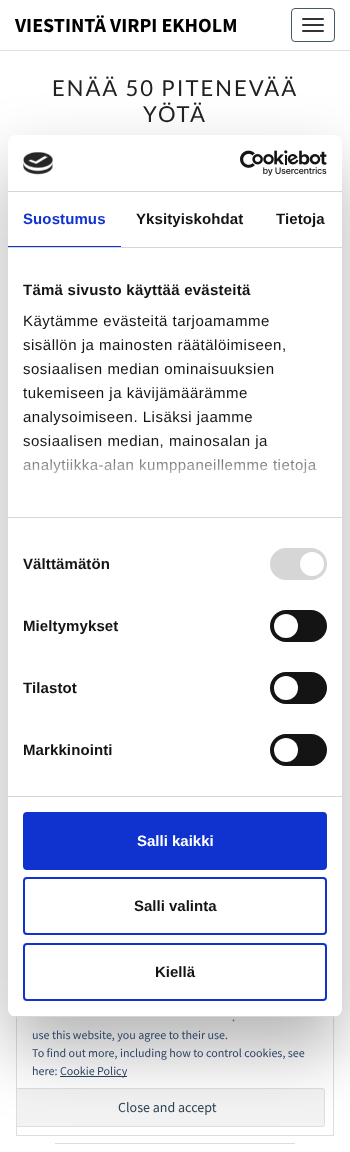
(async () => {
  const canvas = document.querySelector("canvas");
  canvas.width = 350;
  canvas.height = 1152;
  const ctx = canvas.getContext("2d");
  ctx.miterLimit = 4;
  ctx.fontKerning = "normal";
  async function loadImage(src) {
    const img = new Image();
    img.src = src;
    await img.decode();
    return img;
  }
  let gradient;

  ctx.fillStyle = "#ffffff";
  ctx.fillRect(0, 0, 350, 1152);
  ctx.fillStyle = "rgba(100, 100, 100, 0.2)";
  ctx.filter = "blur(0.5px)";
  ctx.beginPath();
  ctx.rect(0, 1, 350, 50);
  ctx.fill();
  ctx.filter = "none";
  ctx.fillStyle = "#ffffff";
  ctx.fillRect(0, 0, 350, 50);
  ctx.beginPath();
  ctx.roundRect(291.5, 8.5, 43, 33, 3.5);
  ctx.strokeStyle = "#455a64";
  ctx.stroke();
  ctx.fillStyle = "#333333";
  ctx.beginPath();
  ctx.roundRect(302, 18, 22, 2, 1);
  ctx.fill();
  ctx.beginPath();
  ctx.roundRect(302, 24, 22, 2, 1);
  ctx.fill();
  ctx.beginPath();
  ctx.roundRect(302, 30, 22, 2, 1);
  ctx.fill();
  ctx.fillStyle = "#dddddd";
  ctx.fillRect(55, 1143, 240, 1);
  ctx.strokeStyle = "#dedede";
  ctx.strokeRect(16.5, 1001.5, 317, 134);
  ctx.fillStyle = "#2e4467";
  ctx.fillRect(60, 1076, 67, 1);
  ctx.fillStyle = "#f3f3f3";
  ctx.beginPath();
  ctx.roundRect(17, 1088, 308, 39, [0, 3, 3, 0]);
  ctx.fill();
  ctx.save();
  ctx.beginPath();
  ctx.rect(17, 1002, 316, 133);
  ctx.clip();
  ctx.beginPath();
  ctx.roundRect(9.5, 1088.5, 315, 38, 2.5);
  ctx.stroke();
  ctx.restore();
  ctx.fillStyle = "rgba(0, 0, 0, 0.3)";
  ctx.filter = "blur(34px)";
  ctx.beginPath();
  ctx.roundRect(8, 167, 334, 882, 8);
  ctx.fill();
  ctx.filter = "none";
  ctx.fillStyle = "#ffffff";
  ctx.beginPath();
  ctx.roundRect(8, 135, 334, 882, 8);
  ctx.fill();
  ctx.fillStyle = "#d6d6d6";
  ctx.fillRect(8, 191, 334, 1);
  ctx.drawImage(await loadImage("img/1.png"), 23, 152, 30, 23);
  ctx.drawImage(await loadImage("img/2.png"), 240, 150, 87, 26);
  for (const [x, y, w, h, color] of [
    [8, 247, 334, 1, "#d6d6d6"],
    [8, 246, 113, 1, "#1032cf"],
    [8, 517, 334, 1, "#d6d6d6"],
    [8, 796, 334, 1, "#d6d6d6"],
  ]) {
    ctx.fillStyle = color;
    ctx.fillRect(x, y, w, h);
  }
  ctx.beginPath();
  ctx.roundRect(270, 548, 57, 32, 16);
  ctx.fill();
  ctx.fillStyle = "#ffffff";
  ctx.beginPath();
  ctx.arc(312, 564, 12, 0, Math.PI * 2);
  ctx.fill();
  ctx.fillStyle = "#141414";
  ctx.beginPath();
  ctx.roundRect(270, 610, 57, 32, 16);
  ctx.fill();
  ctx.fillStyle = "#ffffff";
  ctx.beginPath();
  ctx.arc(286, 626, 12, 0, Math.PI * 2);
  ctx.fill();
  ctx.fillStyle = "#141414";
  ctx.beginPath();
  ctx.roundRect(270, 672, 57, 32, 16);
  ctx.fill();
  ctx.fillStyle = "#ffffff";
  ctx.beginPath();
  ctx.arc(286, 688, 12, 0, Math.PI * 2);
  ctx.fill();
  ctx.fillStyle = "#141414";
  ctx.beginPath();
  ctx.roundRect(270, 734, 57, 32, 16);
  ctx.fill();
  ctx.fillStyle = "#ffffff";
  ctx.beginPath();
  ctx.arc(286, 750, 12, 0, Math.PI * 2);
  ctx.fill();
  ctx.save();
  ctx.beginPath();
  ctx.roundRect(8, 135, 334, 882, 8);
  ctx.clip();
  ctx.fillStyle = "#d6d6d6";
  ctx.fillRect(8, 1016, 334, 1);
  ctx.restore();
  ctx.fillStyle = "#1032cf";
  ctx.beginPath();
  ctx.roundRect(24, 813, 302, 56, 3);
  ctx.fill();
  ctx.strokeStyle = "#1032cf";
  ctx.lineWidth = 2;
  ctx.stroke();
  ctx.beginPath();
  ctx.roundRect(24, 878, 302, 56, 3);
  ctx.stroke();
  ctx.beginPath();
  ctx.roundRect(24, 944, 302, 56, 3);
  ctx.stroke();
  ctx.font = "bold 20px Source Sans Pro";
  ctx.fillStyle = "#000000";
  ctx.fillText("VIESTINTÄ VIRPI EKHOLM", 15, 32);
  ctx.letterSpacing = "2px";
  ctx.font = "22px Lato";
  ctx.fillStyle = "#212121";
  ctx.fillText("ENÄÄ 50 PITENEVÄÄ", 52, 96);
  ctx.fillText("YÖTÄ", 143, 122);
  ctx.letterSpacing = "0.1px";
  ctx.font = "bold 15px Liberation Sans";
  ctx.fillStyle = "#1032cf";
  ctx.fillText("Suostumus", 23, 224);
  ctx.fillStyle = "#141414";
  ctx.fillText("Yksityiskohdat", 136, 224);
  ctx.fillText("Tietoja", 276, 224);
  ctx.letterSpacing = "0.25px";
  ctx.fillText("Tämä sivusto käyttää evästeitä", 23, 295);
  ctx.letterSpacing = "0.5px";
  ctx.font = "15px Liberation Sans";
  for (const [text, x, y] of [
    ["Käytämme evästeitä tarjoamamme", 23, 326],
    ["sisällön ja mainosten räätälöimiseen,", 23, 350],
    ["sosiaalisen median ominaisuuksien", 23, 374],
    ["tukemiseen ja kävijämäärämme", 23, 398],
    ["analysoimiseen. Lisäksi jaamme", 23, 422],
    ["sosiaalisen median, mainosalan ja", 23, 446],
    ["analytiikka-alan kumppaneillemme tietoja", 23, 470],
  ]) {
    ctx.fillText(text, x, y);
  }
  gradient = ctx.createLinearGradient(169, 517, 169, 442);
  gradient.addColorStop(0, "#ffffff");
  gradient.addColorStop(0.5, "rgba(255, 255, 255, 0.8)");
  gradient.addColorStop(1, "rgba(255, 255, 255, 0)");
  ctx.fillStyle = gradient;
  ctx.fillRect(23, 443, 293, 31);
  ctx.letterSpacing = "0.1px";
  ctx.font = "bold 15px Liberation Sans";
  ctx.fillStyle = "#141414";
  for (const [text, x, y] of [
    ["Välttämätön", 23, 569],
    ["Mieltymykset", 23, 631],
    ["Tilastot", 23, 693],
    ["Markkinointi", 23, 755],
  ]) {
    ctx.fillText(text, x, y);
  }
  ctx.letterSpacing = "0px";
  ctx.fillStyle = "#ffffff";
  ctx.fillText("Salli kaikki", 137, 846);
  ctx.fillStyle = "#141414";
  ctx.fillText("Salli valinta", 134, 911);
  ctx.fillText("Kiellä", 155, 977);
  ctx.font = "12px Source Sans Pro";
  ctx.fillStyle = "#2e4467";
  for (const [text, x, y] of [
    [".", 232, 1021],
    ["use this website, you agree to their use.", 32, 1039],
    ["To find out more, including how to control cookies, see", 32, 1057],
    ["here:", 32, 1075],
    ["Cookie Policy", 60, 1075],
  ]) {
    ctx.fillText(text, x, y);
  }
  ctx.font = "14px Source Sans Pro";
  ctx.fillStyle = "#2e4453";
  ctx.fillText("Close and accept", 118, 1112);
})();
